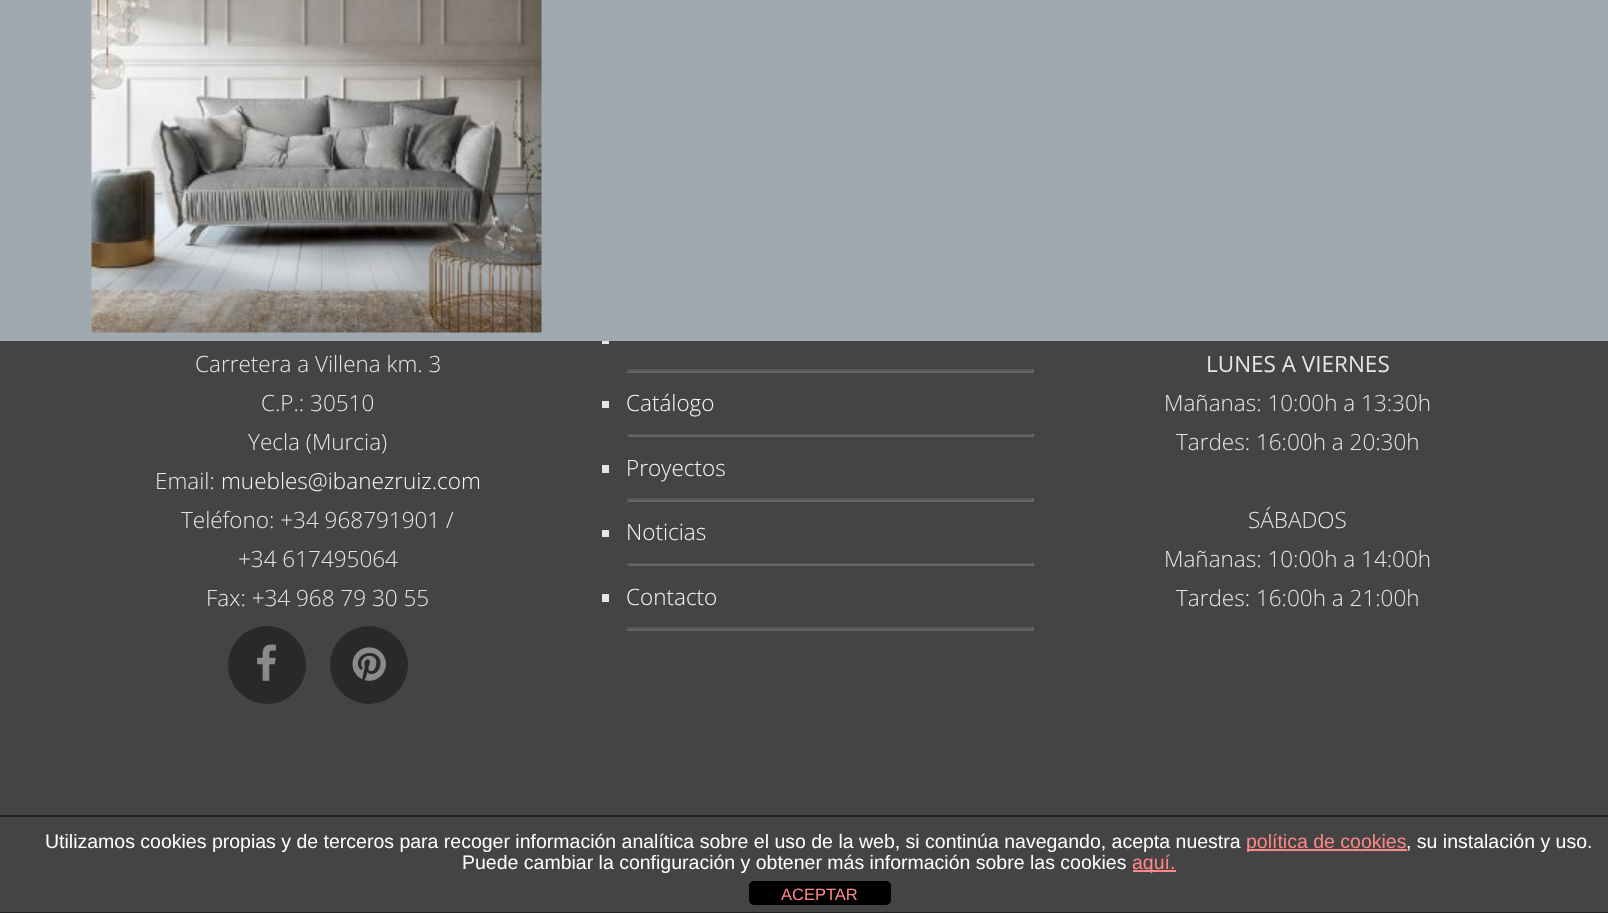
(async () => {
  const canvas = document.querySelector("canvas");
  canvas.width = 1608;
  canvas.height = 913;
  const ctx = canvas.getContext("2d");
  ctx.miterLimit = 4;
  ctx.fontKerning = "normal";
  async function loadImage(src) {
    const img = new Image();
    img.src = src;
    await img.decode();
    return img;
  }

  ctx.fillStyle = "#444444";
  ctx.fillRect(0, 0, 1608, 913);
  ctx.fillStyle = "#e5e5e5";
  ctx.fillRect(602, 336, 7, 8);
  ctx.fillStyle = "#a0a9b0";
  ctx.fillRect(0, 0, 1608, 341);
  ctx.drawImage(await loadImage("img/1.png"), 91, 0, 451, 333);
  ctx.fillStyle = "#292929";
  ctx.beginPath();
  ctx.arc(267, 665, 39, 0, Math.PI * 2);
  ctx.fill();
  ctx.drawImage(await loadImage("img/2.png"), 257, 644, 19, 37);
  ctx.beginPath();
  ctx.arc(369, 665, 39, 0, Math.PI * 2);
  ctx.fill();
  ctx.drawImage(await loadImage("img/3.png"), 352, 647, 34, 34);
  for (const [x, y, w, h, color] of [
    [627, 369, 407, 2, "#565656"],
    [1032, 369, 2, 3, "#666666"],
    [627, 371, 407, 2, "#666666"],
    [627, 369, 2, 3, "#565656"],
    [602, 401, 7, 7, "#e5e5e5"],
    [627, 434, 407, 1, "#565656"],
    [1032, 434, 2, 3, "#666666"],
    [627, 435, 407, 2, "#666666"],
    [627, 434, 2, 3, "#565656"],
    [602, 465, 7, 8, "#e5e5e5"],
    [627, 498, 407, 2, "#565656"],
    [1032, 498, 2, 3, "#666666"],
    [627, 500, 407, 2, "#666666"],
    [627, 498, 2, 3, "#565656"],
    [602, 530, 7, 7, "#e5e5e5"],
    [627, 563, 407, 1, "#565656"],
    [1032, 563, 2, 3, "#666666"],
    [627, 564, 407, 2, "#666666"],
    [627, 563, 2, 3, "#565656"],
    [602, 594, 7, 8, "#e5e5e5"],
    [627, 627, 407, 2, "#565656"],
    [1032, 627, 2, 3, "#666666"],
    [627, 629, 407, 2, "#666666"],
    [627, 627, 2, 3, "#565656"],
    [0, 815, 1608, 2, "#222222"],
    [0, 912, 1608, 1, "#222222"],
    [1247, 849, 160, 2, "#ff8888"],
    [1133, 870, 43, 2, "#ff8888"],
  ]) {
    ctx.fillStyle = color;
    ctx.fillRect(x, y, w, h);
  }
  ctx.fillStyle = "#000000";
  ctx.beginPath();
  ctx.roundRect(749, 881, 142, 24, 5);
  ctx.fill();
  ctx.font = "300 22.5px Open Sans";
  ctx.fillStyle = "#e5e5e5";
  for (const [text, x, y] of [
    ["Carretera a Villena km. 3", 195, 372],
    ["C.P.: 30510", 261, 411],
    ["Yecla (Murcia)", 248, 450],
    ["Email:", 155, 489],
  ]) {
    ctx.fillText(text, x, y);
  }
  ctx.fillStyle = "#f7f7f7";
  ctx.fillText("muebles@ibanezruiz.com", 221, 489);
  ctx.fillStyle = "#e5e5e5";
  for (const [text, x, y] of [
    ["Teléfono: +34 968791901 /", 181, 528],
    ["+34 617495064", 238, 567],
    ["Fax: +34 968 79 30 55", 206, 606],
  ]) {
    ctx.fillText(text, x, y);
  }
  ctx.fillStyle = "#f7f7f7";
  for (const [text, x, y] of [
    ["Catálogo", 626, 411],
    ["Proyectos", 626, 476],
    ["Noticias", 626, 540],
    ["Contacto", 626, 605],
  ]) {
    ctx.fillText(text, x, y);
  }
  ctx.font = "22.5px Open Sans";
  ctx.fillStyle = "#e5e5e5";
  ctx.fillText("LUNES A VIERNES", 1206, 372);
  ctx.font = "300 22.5px Open Sans";
  for (const [text, x, y] of [
    ["Mañanas: 10:00h a 13:30h", 1164, 411],
    ["Tardes: 16:00h a 20:30h", 1176, 450],
    ["SÁBADOS", 1248, 528],
    ["Mañanas: 10:00h a 14:00h", 1164, 567],
    ["Tardes: 16:00h a 21:00h", 1176, 606],
  ]) {
    ctx.fillText(text, x, y);
  }
  ctx.font = "19.5px Liberation Sans";
  ctx.fillStyle = "#ffffff";
  ctx.fillText("Utilizamos cookies propias y de terceros para recoger información analítica sobre el uso de la web, si continúa navegando, acepta nuestra", 45, 848);
  ctx.fillStyle = "#ff8888";
  ctx.fillText("política de cookies", 1246, 848);
  ctx.fillStyle = "#ffffff";
  ctx.fillText(", su instalación y uso.", 1406, 848);
  ctx.fillText("Puede cambiar la configuración y obtener más información sobre las cookies", 462, 869);
  ctx.fillStyle = "#ff8888";
  ctx.fillText("aquí.", 1132, 869);
  ctx.font = "16.5px Liberation Sans";
  ctx.fillText("ACEPTAR", 781, 900);
})();
